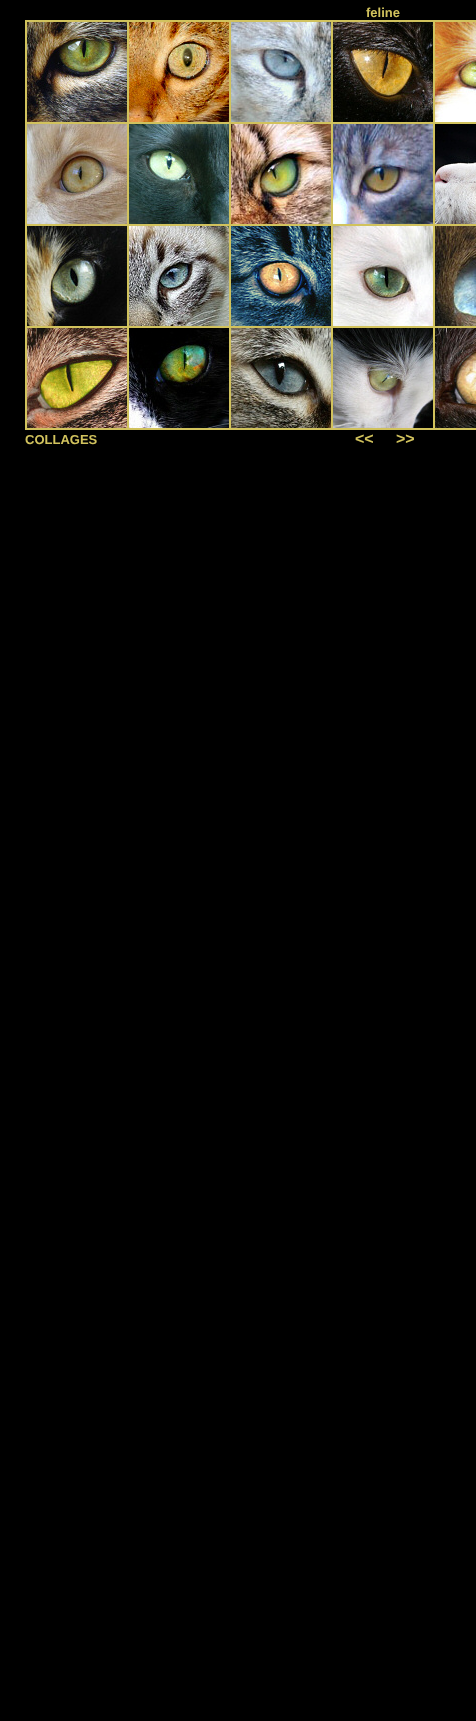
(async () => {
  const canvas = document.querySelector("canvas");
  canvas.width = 476;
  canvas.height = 1721;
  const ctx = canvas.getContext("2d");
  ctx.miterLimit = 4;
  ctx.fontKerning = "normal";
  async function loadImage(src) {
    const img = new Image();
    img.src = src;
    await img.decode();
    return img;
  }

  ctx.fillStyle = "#000000";
  ctx.fillRect(0, 0, 476, 1721);
  ctx.fillStyle = "#d1c25d";
  ctx.fillRect(25, 20, 451, 410);
  ctx.drawImage(await loadImage("img/1.png"), 27, 22, 100, 100);
  ctx.drawImage(await loadImage("img/2.png"), 129, 22, 100, 100);
  ctx.drawImage(await loadImage("img/3.png"), 231, 22, 100, 100);
  ctx.drawImage(await loadImage("img/4.png"), 333, 22, 100, 100);
  ctx.drawImage(await loadImage("img/5.png"), 435, 22, 41, 100);
  ctx.drawImage(await loadImage("img/6.png"), 27, 124, 100, 100);
  ctx.drawImage(await loadImage("img/7.png"), 129, 124, 100, 100);
  ctx.drawImage(await loadImage("img/8.png"), 231, 124, 100, 100);
  ctx.drawImage(await loadImage("img/9.png"), 333, 124, 100, 100);
  ctx.drawImage(await loadImage("img/10.png"), 435, 124, 41, 100);
  ctx.drawImage(await loadImage("img/11.png"), 27, 226, 100, 100);
  ctx.drawImage(await loadImage("img/12.png"), 129, 226, 100, 100);
  ctx.drawImage(await loadImage("img/13.png"), 231, 226, 100, 100);
  ctx.drawImage(await loadImage("img/14.png"), 333, 226, 100, 100);
  ctx.drawImage(await loadImage("img/15.png"), 435, 226, 41, 100);
  ctx.drawImage(await loadImage("img/16.png"), 27, 328, 100, 100);
  ctx.drawImage(await loadImage("img/17.png"), 129, 328, 100, 100);
  ctx.drawImage(await loadImage("img/18.png"), 231, 328, 100, 100);
  ctx.drawImage(await loadImage("img/19.png"), 333, 328, 100, 100);
  ctx.drawImage(await loadImage("img/20.png"), 435, 328, 41, 100);
  ctx.font = "bold 13px Liberation Sans";
  ctx.fillText("feline", 366, 17);
  ctx.fillText("COLLAGES", 25, 444);
  ctx.font = "bold 16px Liberation Sans";
  ctx.fillText("<<", 355, 444);
  ctx.fillText(">>", 396, 444);
})();
